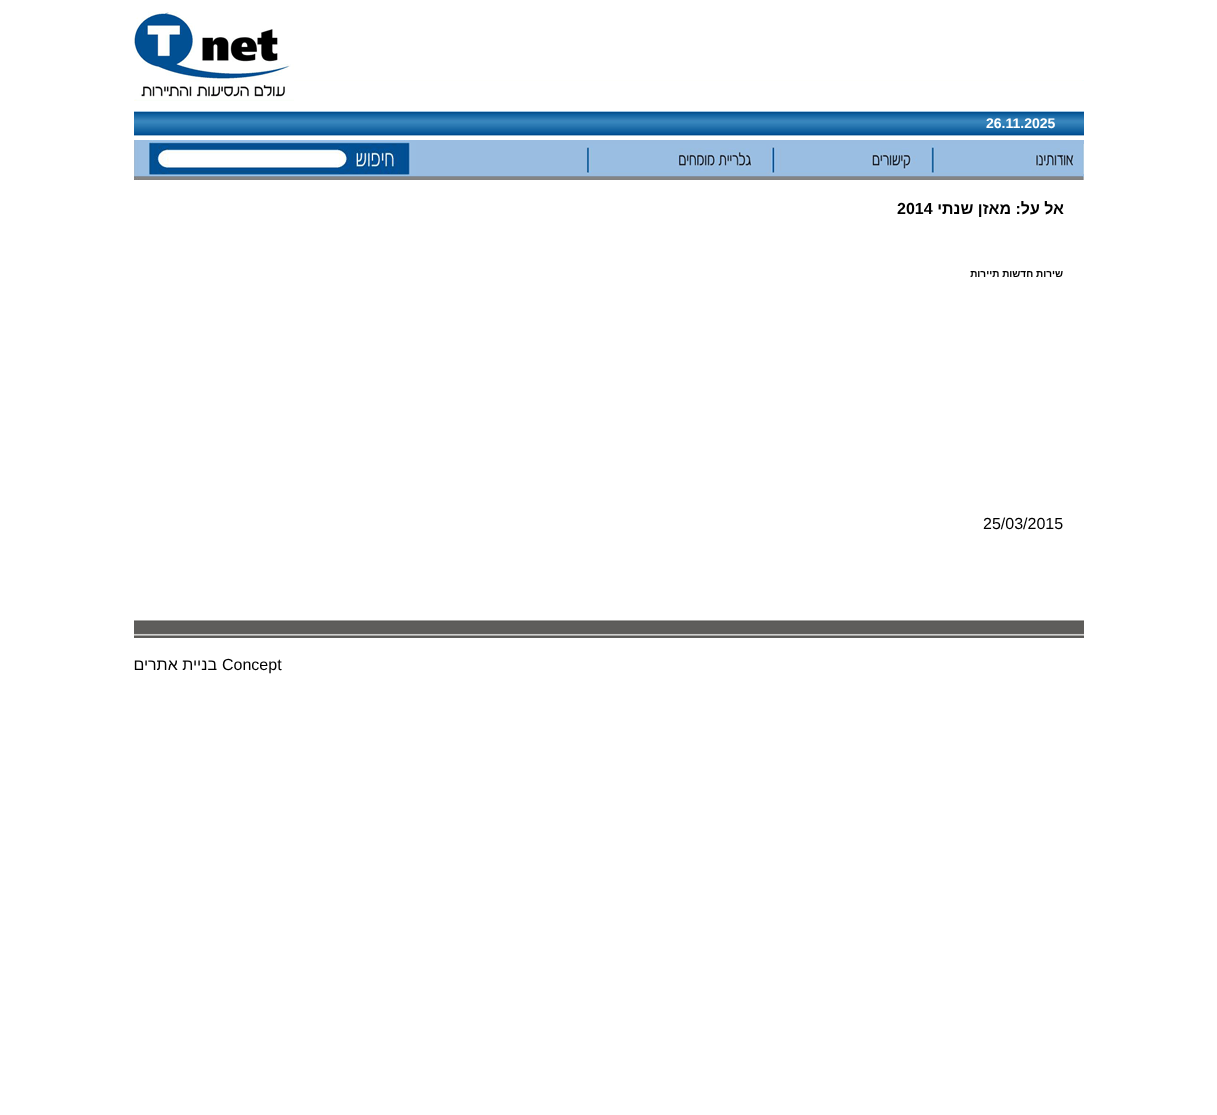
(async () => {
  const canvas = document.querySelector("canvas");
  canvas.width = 1217;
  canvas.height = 1115;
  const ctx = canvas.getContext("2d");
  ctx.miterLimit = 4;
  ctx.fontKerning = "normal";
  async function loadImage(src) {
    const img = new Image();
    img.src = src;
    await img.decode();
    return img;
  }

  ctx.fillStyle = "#ffffff";
  ctx.fillRect(0, 0, 1217, 1115);
  ctx.drawImage(await loadImage("img/1.png"), 134, 80, 950, 100);
  ctx.drawImage(await loadImage("img/2.png"), 134, 11, 160, 90);
  ctx.drawImage(await loadImage("img/3.png"), 587, 144, 497, 30);
  ctx.drawImage(await loadImage("img/4.png"), 134, 620, 950, 18);
  ctx.font = "bold 14px Liberation Sans";
  ctx.fillText("26.11.2025", 986, 128);
  ctx.direction = "rtl";
  ctx.font = "bold 16px Liberation Sans";
  ctx.fillStyle = "#000000";
  ctx.fillText("אל על: מאזן שנתי", 1064, 214);
  ctx.direction = "ltr";
  ctx.fillText("2014", 897, 214);
  ctx.direction = "rtl";
  ctx.font = "bold 10px Liberation Sans";
  ctx.fillText("שירות חדשות תיירות", 1063, 277);
  ctx.direction = "ltr";
  ctx.font = "16px Liberation Sans";
  ctx.fillText("25/03/2015", 983, 529);
  ctx.fillText("Concept", 222, 670);
  ctx.direction = "rtl";
  ctx.fillText("בניית אתרים", 217, 670);
})();
